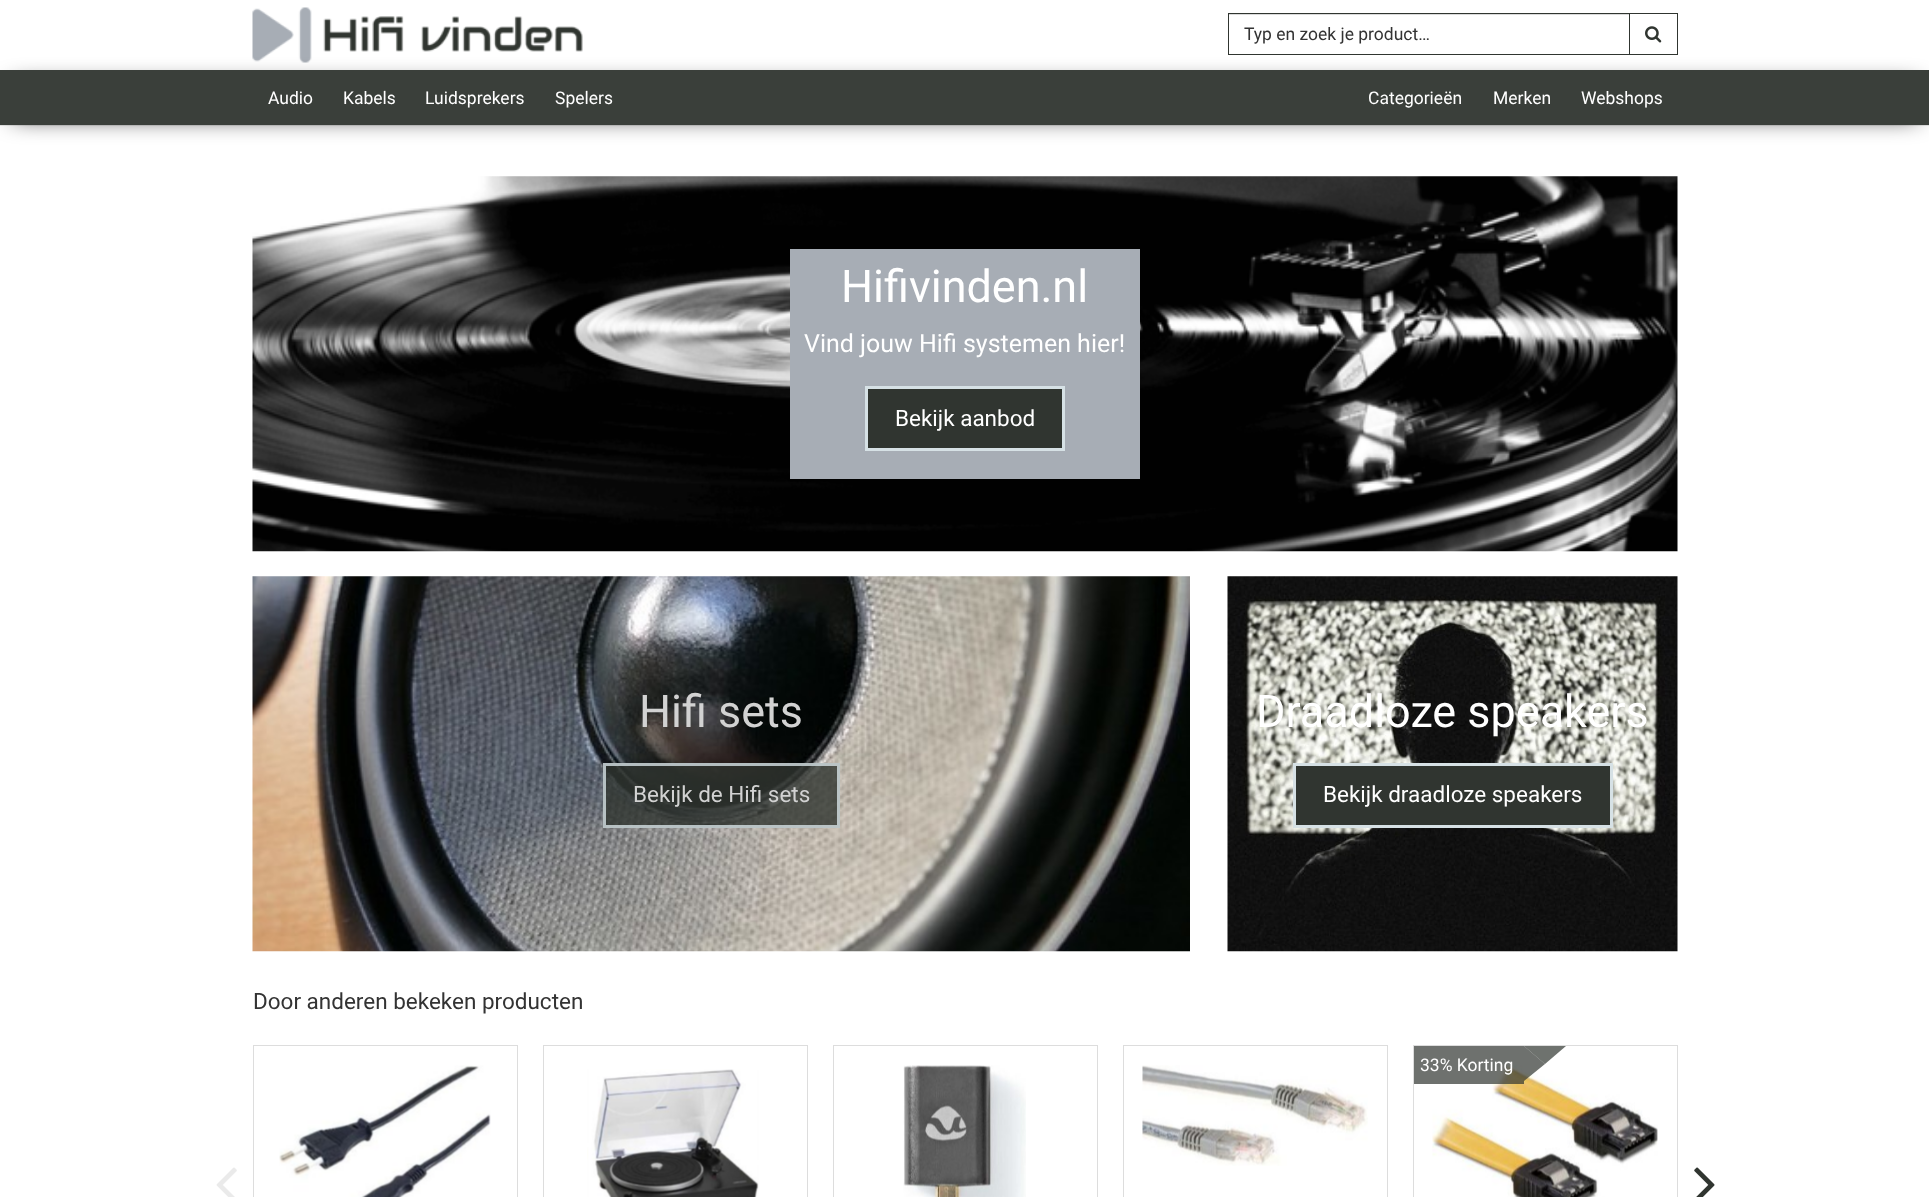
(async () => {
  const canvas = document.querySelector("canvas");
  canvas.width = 1929;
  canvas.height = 1197;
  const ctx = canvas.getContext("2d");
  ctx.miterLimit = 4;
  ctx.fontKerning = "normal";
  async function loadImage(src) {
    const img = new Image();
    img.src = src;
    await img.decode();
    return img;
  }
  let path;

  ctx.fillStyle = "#ffffff";
  ctx.fillRect(0, 0, 1929, 1197);
  ctx.fillStyle = "#e7e7e7";
  ctx.fillRect(0, 125, 1929, 1);
  ctx.drawImage(await loadImage("img/1.png"), 252, 7, 331, 56);
  ctx.fillStyle = "#000000";
  ctx.filter = "blur(12.5px)";
  ctx.beginPath();
  ctx.rect(13, 86, 1905, 30);
  ctx.fill();
  ctx.filter = "none";
  ctx.strokeStyle = "#303530";
  ctx.strokeRect(1228.5, 13.5, 449, 41);
  ctx.fillStyle = "#dadada";
  ctx.fillRect(1229, 14, 400, 1);
  ctx.strokeRect(1629.5, 13.5, 48, 41);
  ctx.drawImage(await loadImage("img/2.png"), 1645, 26, 17, 17);
  ctx.fillStyle = "#3a3f3a";
  ctx.fillRect(0, 70, 1929, 55);
  ctx.drawImage(await loadImage("img/3.png"), 252, 176, 1426, 376);
  ctx.fillStyle = "#a7adb5";
  ctx.fillRect(790, 249, 350, 230);
  ctx.fillStyle = "#303530";
  ctx.beginPath();
  ctx.rect(866.5, 387.5, 197, 62);
  ctx.fill();
  ctx.strokeStyle = "#d6e1e5";
  ctx.lineWidth = 3;
  ctx.stroke();
  ctx.drawImage(await loadImage("img/4.png"), 252, 576, 938, 376);
  ctx.fillStyle = "rgba(48, 53, 48, 0.8)";
  ctx.fillRect(603, 763, 237, 65);
  ctx.strokeStyle = "rgba(214, 225, 229, 0.8)";
  ctx.strokeRect(604.5, 764.5, 234, 62);
  ctx.drawImage(await loadImage("img/5.png"), 1227, 576, 451, 376);
  ctx.fillStyle = "#303530";
  ctx.beginPath();
  ctx.rect(1294.5, 764.5, 317, 62);
  ctx.fill();
  ctx.strokeStyle = "#d6e1e5";
  ctx.stroke();
  ctx.strokeStyle = "#dddddd";
  ctx.lineWidth = 1;
  ctx.strokeRect(253.5, 1045.5, 264, 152);
  ctx.drawImage(await loadImage("img/6.png"), 279, 1065, 212, 132);
  ctx.strokeRect(543.5, 1045.5, 264, 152);
  ctx.drawImage(await loadImage("img/7.png"), 587, 1069, 172, 128);
  ctx.strokeRect(833.5, 1045.5, 264, 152);
  ctx.drawImage(await loadImage("img/8.png"), 903, 1065, 123, 132);
  ctx.strokeRect(1123.5, 1045.5, 264, 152);
  ctx.drawImage(await loadImage("img/9.png"), 1142, 1065, 226, 101);
  ctx.strokeRect(1413.5, 1045.5, 264, 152);
  ctx.drawImage(await loadImage("img/10.png"), 1432, 1064, 226, 133);
  ctx.fillStyle = "rgba(48, 53, 48, 0.7)";
  ctx.fillRect(1414, 1046, 110, 38);
  ctx.fillStyle = "#6e726e";
  path = new Path2D("M1524 1046H1566L1545 1064Z");
  ctx.fill(path);
  ctx.fillStyle = "rgba(48, 53, 48, 0.7)";
  path = new Path2D("M1524 1081V1046L1545 1064Z");
  ctx.fill(path);
  ctx.drawImage(await loadImage("img/11.png"), 216, 1167, 21, 30);
  ctx.drawImage(await loadImage("img/12.png"), 1694, 1167, 21, 30);
  ctx.font = "17.5px Roboto";
  ctx.fillStyle = "#333333";
  ctx.fillText("Typ en zoek je product…", 1244, 40);
  ctx.fillStyle = "#ffffff";
  for (const [text, x, y] of [
    ["Audio", 268, 104],
    ["Kabels", 343, 104],
    ["Luidsprekers", 425, 104],
    ["Spelers", 555, 104],
    ["Categorieën", 1368, 104],
    ["Merken", 1493, 104],
    ["Webshops", 1581, 104],
  ]) {
    ctx.fillText(text, x, y);
  }
  ctx.font = "45px Roboto";
  ctx.fillText("Hifivinden.nl", 841, 302);
  ctx.font = "25px Roboto";
  ctx.fillText("Vind jouw Hifi systemen hier!", 804, 352);
  ctx.font = "22.5px Roboto";
  ctx.fillText("Bekijk aanbod", 895, 426);
  ctx.font = "45px Roboto";
  ctx.fillStyle = "#d2d2d2";
  ctx.fillText("Hifi sets", 639, 727);
  ctx.font = "22.5px Roboto";
  ctx.fillText("Bekijk de Hifi sets", 633, 802);
  ctx.font = "45px Roboto";
  ctx.fillStyle = "#ffffff";
  ctx.fillText("Draadloze speakers", 1256, 727);
  ctx.font = "22.5px Roboto";
  ctx.fillText("Bekijk draadloze speakers", 1323, 802);
  ctx.fillStyle = "#333333";
  ctx.fillText("Door anderen bekeken producten", 253, 1009);
  ctx.font = "17.5px Roboto";
  ctx.fillStyle = "#ffffff";
  ctx.fillText("33% Korting", 1420, 1071);
})();
